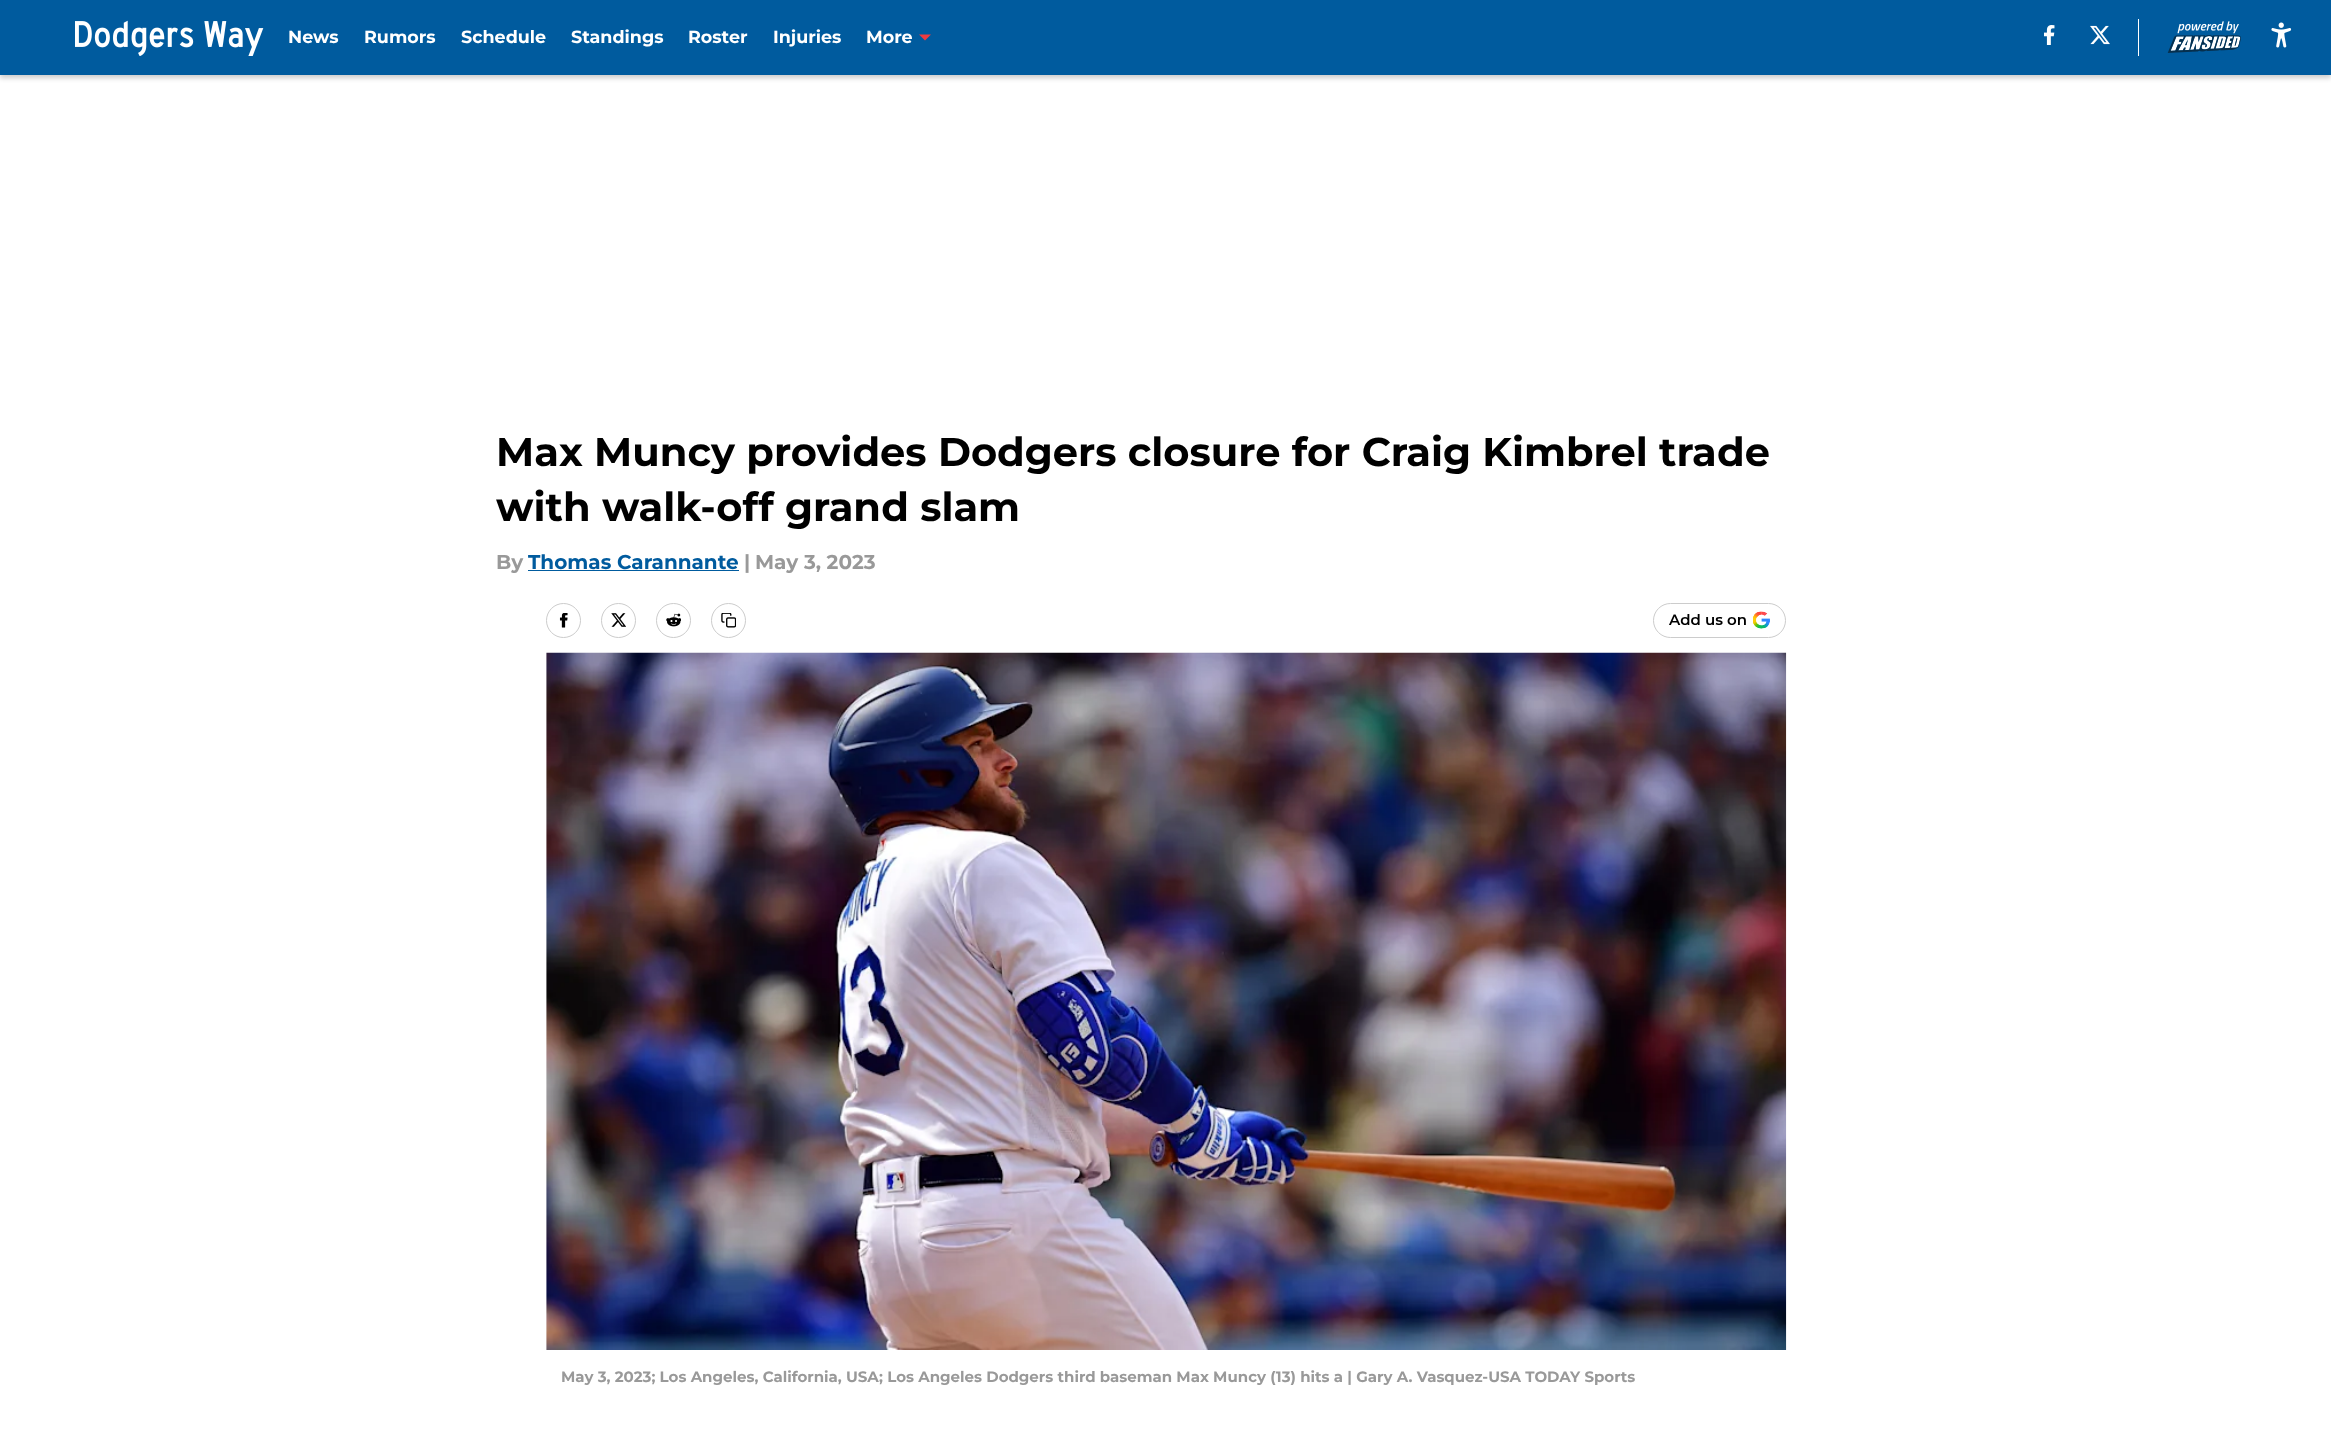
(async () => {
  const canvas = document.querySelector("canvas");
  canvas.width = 2331;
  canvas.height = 1440;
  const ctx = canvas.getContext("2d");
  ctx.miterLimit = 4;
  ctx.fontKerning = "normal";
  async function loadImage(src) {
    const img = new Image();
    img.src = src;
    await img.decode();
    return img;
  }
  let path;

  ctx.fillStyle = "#ffffff";
  ctx.fillRect(0, 0, 2331, 1440);
  ctx.fillStyle = "rgba(0, 0, 0, 0.2)";
  ctx.filter = "blur(2.5px)";
  ctx.beginPath();
  ctx.rect(0, 3, 2331, 75);
  ctx.fill();
  ctx.filter = "none";
  ctx.fillStyle = "#005b9e";
  ctx.fillRect(0, 0, 2331, 75);
  ctx.drawImage(await loadImage("img/1.png"), 75, 20, 189, 36);
  ctx.fillStyle = "#ee3b3f";
  path = new Path2D("M919 34.5L925 40.5L931 34.5Z");
  ctx.fill(path, "evenodd");
  ctx.drawImage(await loadImage("img/2.png"), 2044, 25, 11, 20);
  ctx.drawImage(await loadImage("img/3.png"), 2090, 25, 20, 20);
  ctx.fillStyle = "#ffffff";
  ctx.fillRect(2138, 19, 1, 37);
  ctx.drawImage(await loadImage("img/4.png"), 2167, 21, 74, 32);
  ctx.drawImage(await loadImage("img/5.png"), 2271, 22, 21, 26);
  ctx.fillStyle = "#005b9e";
  ctx.fillRect(528, 570, 211, 1);
  ctx.beginPath();
  ctx.arc(563.5, 620.5, 17, 0, Math.PI * 2);
  ctx.strokeStyle = "#cccccc";
  ctx.stroke();
  ctx.drawImage(await loadImage("img/6.png"), 559, 613, 9, 15);
  ctx.beginPath();
  ctx.arc(618.5, 620.5, 17, 0, Math.PI * 2);
  ctx.stroke();
  ctx.drawImage(await loadImage("img/7.png"), 611, 613, 15, 14);
  ctx.beginPath();
  ctx.arc(673.5, 620.5, 17, 0, Math.PI * 2);
  ctx.stroke();
  ctx.drawImage(await loadImage("img/8.png"), 666, 613, 15, 14);
  ctx.beginPath();
  ctx.arc(728.5, 620.5, 17, 0, Math.PI * 2);
  ctx.stroke();
  ctx.drawImage(await loadImage("img/9.png"), 721, 613, 15, 15);
  ctx.beginPath();
  ctx.roundRect(1653.5, 603.5, 132, 34, 17);
  ctx.stroke();
  ctx.drawImage(await loadImage("img/10.png"), 1753, 611, 17, 18);
  ctx.fillStyle = "#f7f7f7";
  ctx.fillRect(546, 653, 1, 697);
  ctx.drawImage(await loadImage("img/11.png"), 546, 652, 1241, 698);
  ctx.font = "100 17.5px 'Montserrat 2'";
  ctx.fillStyle = "#ffffff";
  for (const [text, x, y] of [
    ["News", 288, 43],
    ["Rumors", 364, 43],
    ["Schedule", 461, 43],
    ["Standings", 571, 43],
    ["Roster", 688, 43],
    ["Injuries", 773, 43],
    ["More", 866, 43],
  ]) {
    ctx.fillText(text, x, y);
  }
  ctx.font = "100 40px 'Montserrat 2'";
  ctx.fillStyle = "#000000";
  ctx.fillText("Max Muncy provides Dodgers closure for Craig Kimbrel trade", 496, 466);
  ctx.fillText("with walk-off grand slam", 496, 521);
  ctx.font = "100 20px 'Montserrat 2'";
  ctx.fillStyle = "#999999";
  ctx.fillText("By", 496, 569);
  ctx.fillStyle = "#005b9e";
  ctx.fillText("Thomas Carannante", 528, 569);
  ctx.fillStyle = "#999999";
  ctx.fillText("|", 744, 569);
  ctx.fillText("May 3, 2023", 755, 569);
  ctx.font = "100 15px Montserrat";
  ctx.fillStyle = "#000000";
  ctx.fillText("Add us on", 1669, 625);
  ctx.font = "100 15px 'Montserrat 2'";
  ctx.fillStyle = "#999999";
  ctx.fillText("May 3, 2023; Los Angeles, California, USA; Los Angeles Dodgers third baseman Max Muncy (13) hits a | Gary A. Vasquez-USA TODAY Sports", 561, 1382);
})();
